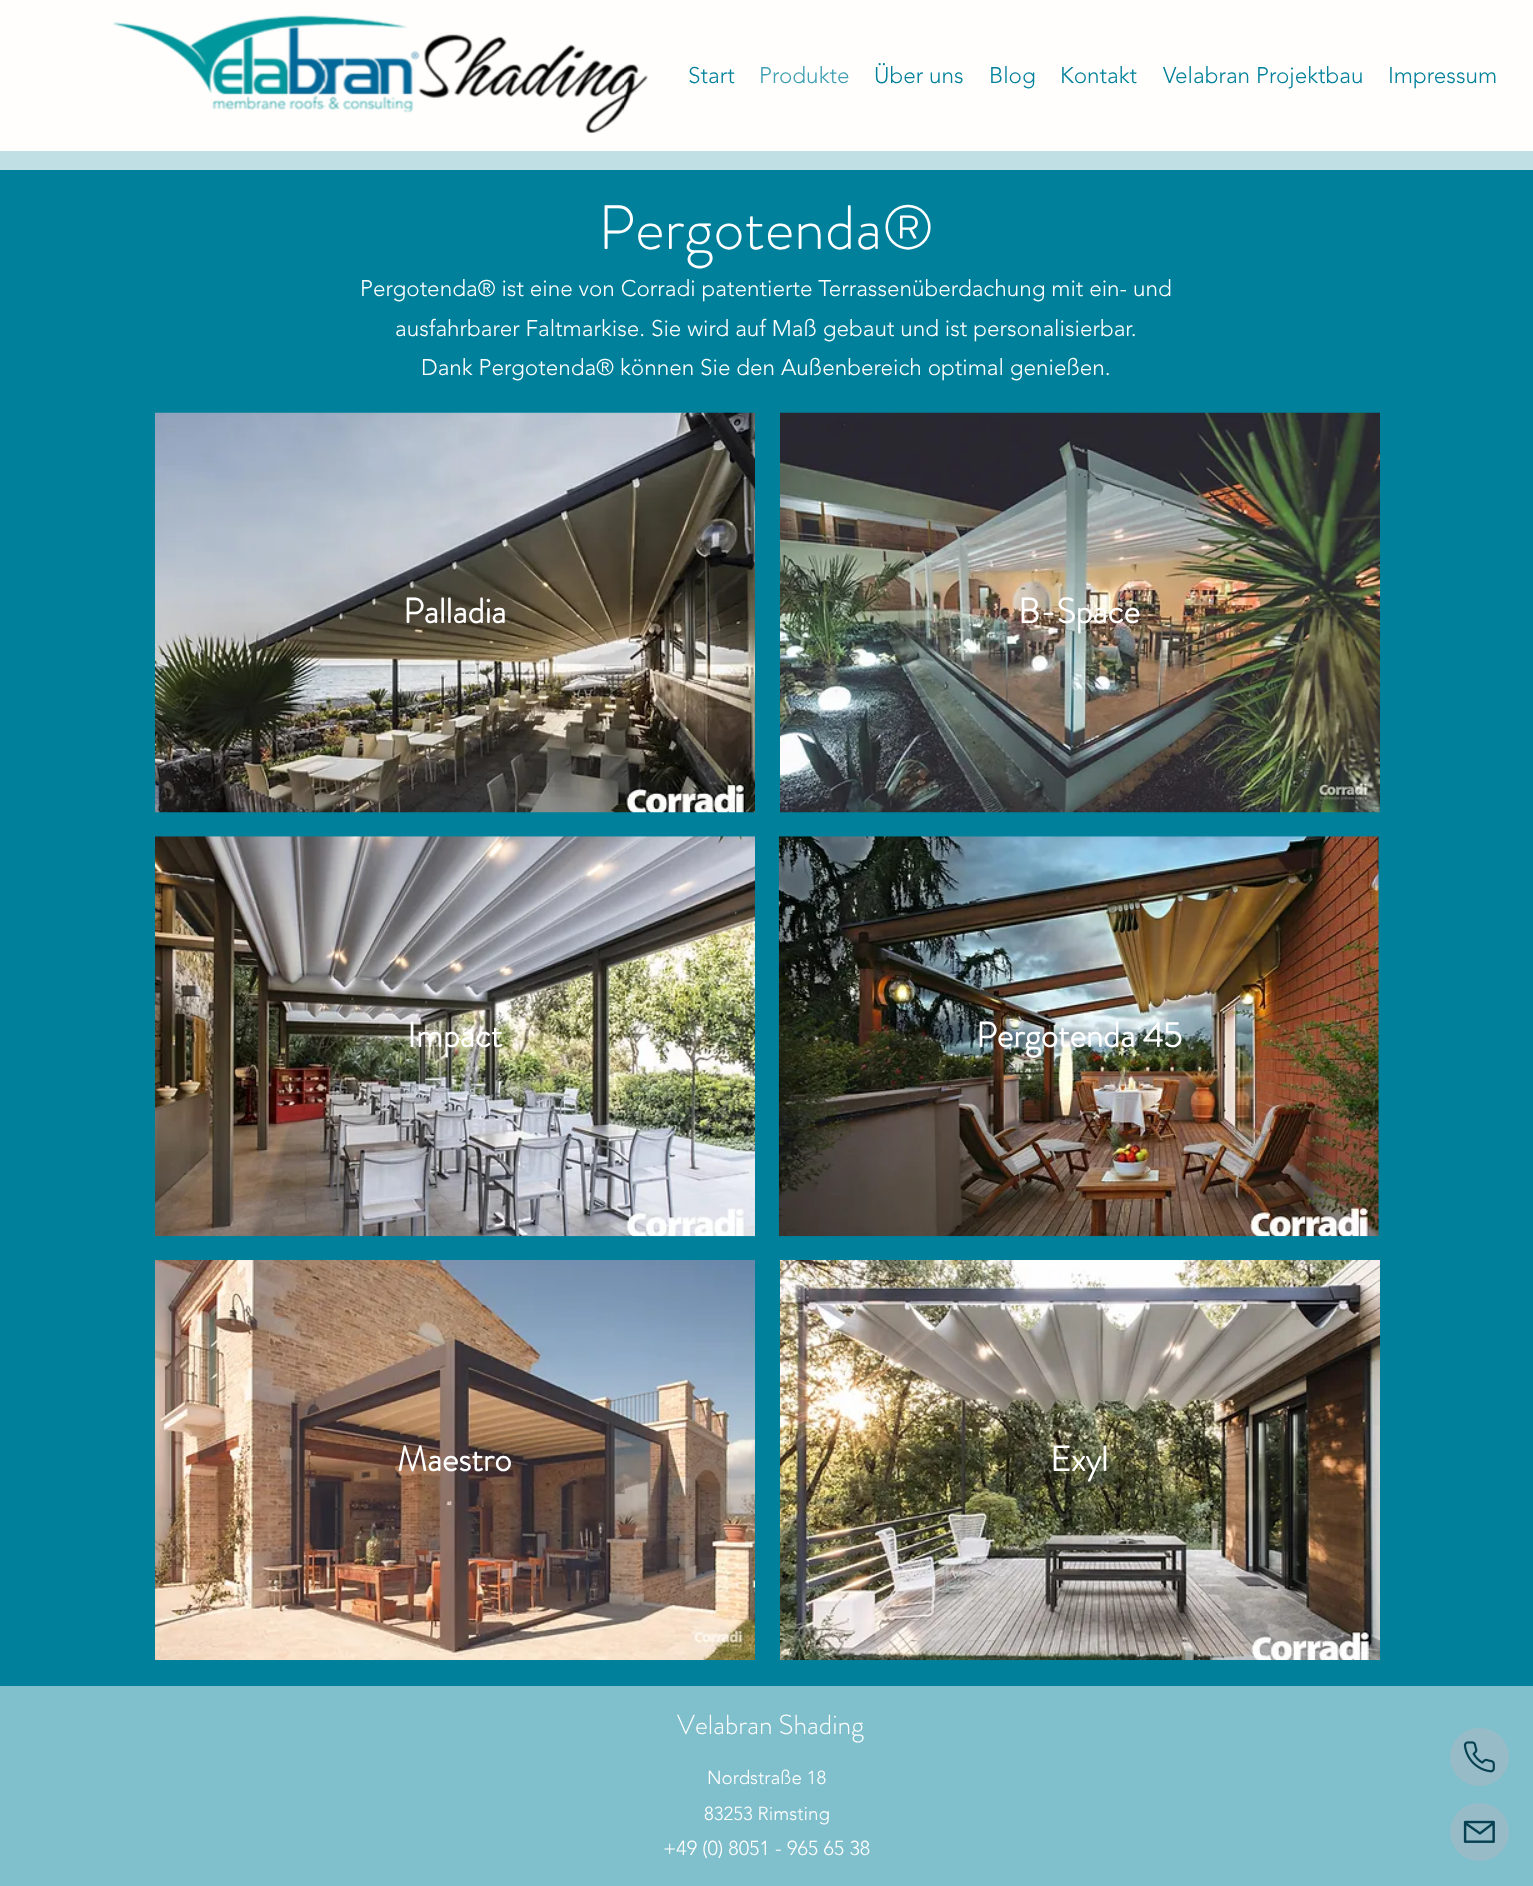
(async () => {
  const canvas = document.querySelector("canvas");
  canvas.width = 1533;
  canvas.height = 1886;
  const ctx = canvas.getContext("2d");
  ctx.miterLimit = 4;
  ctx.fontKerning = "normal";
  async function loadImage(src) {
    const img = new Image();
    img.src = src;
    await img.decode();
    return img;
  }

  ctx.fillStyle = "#bfdfe4";
  ctx.fillRect(0, 0, 1533, 1886);
  ctx.fillStyle = "#fffefc";
  ctx.fillRect(0, 0, 1533, 151);
  ctx.drawImage(await loadImage("img/1.png"), 113, 15, 535, 118);
  ctx.fillStyle = "#00809b";
  ctx.fillRect(0, 170, 1533, 1516);
  ctx.drawImage(await loadImage("img/2.png"), 155, 412, 600, 401);
  ctx.drawImage(await loadImage("img/3.png"), 780, 412, 600, 401);
  ctx.drawImage(await loadImage("img/4.png"), 155, 836, 600, 401);
  ctx.drawImage(await loadImage("img/5.png"), 778, 836, 601, 401);
  ctx.drawImage(await loadImage("img/6.png"), 155, 1260, 600, 400);
  ctx.drawImage(await loadImage("img/7.png"), 780, 1260, 600, 400);
  ctx.fillStyle = "#80bfcc";
  ctx.fillRect(0, 1686, 1533, 200);
  ctx.fillStyle = "#97bcc8";
  ctx.beginPath();
  ctx.roundRect(1450, 1728, 59, 58, 29);
  ctx.fill();
  ctx.drawImage(await loadImage("img/8.png"), 1463, 1741, 32, 32);
  ctx.beginPath();
  ctx.roundRect(1450, 1803, 59, 58, 29);
  ctx.fill();
  ctx.drawImage(await loadImage("img/9.png"), 1463, 1820, 32, 23);
  ctx.font = "300 22.5px 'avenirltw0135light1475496'";
  ctx.fillStyle = "#00809b";
  ctx.fillText("Start", 688, 83);
  ctx.fillStyle = "#40a0b3";
  ctx.fillText("Produkte", 759, 83);
  ctx.fillStyle = "#00809b";
  for (const [text, x, y] of [
    ["Über uns", 874, 83],
    ["Blog", 989, 83],
    ["Kontakt", 1060, 83],
    ["Velabran Projektbau", 1163, 83],
    ["Impressum", 1388, 83],
  ]) {
    ctx.fillText(text, x, y);
  }
  ctx.font = "300 62.5px 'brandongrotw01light'";
  ctx.fillStyle = "#ffffff";
  ctx.fillText("Pergotenda®", 598, 249);
  ctx.font = "300 22.5px 'avenirltw0135light1475496'";
  for (const [text, x, y] of [
    ["Pergotenda® ist eine von Corradi patentierte Terrassenüberdachung mit ein- und", 360, 296],
    ["ausfahrbarer Faltmarkise. Sie wird auf Maß gebaut und ist personalisierbar.", 395, 336],
    ["Dank Pergotenda® können Sie den Außenbereich optimal genießen.", 421, 375],
  ]) {
    ctx.fillText(text, x, y);
  }
  ctx.font = "bold 35px 'brandongrotw01light'";
  for (const [text, x, y] of [
    ["Palladia", 403, 623],
    ["B-Space", 1018, 623],
    ["Impact", 407, 1047],
    ["Pergotenda 45", 976, 1047],
    ["Maestro", 397, 1471],
    ["Exyl", 1050, 1471],
  ]) {
    ctx.fillText(text, x, y);
  }
  ctx.font = "300 27.5px 'brandongrotw01light'";
  ctx.fillText("Velabran Shading", 677, 1734);
  ctx.font = "300 18.75px 'avenirltw0135light1475496'";
  ctx.fillText("Nordstraße 18", 707, 1784);
  ctx.fillText("83253 Rimsting", 704, 1820);
  ctx.font = "300 20px 'avenirltw0135light1475496'";
  ctx.fillText("+49 (0) 8051 - 965 65 38", 663, 1855);
})();
